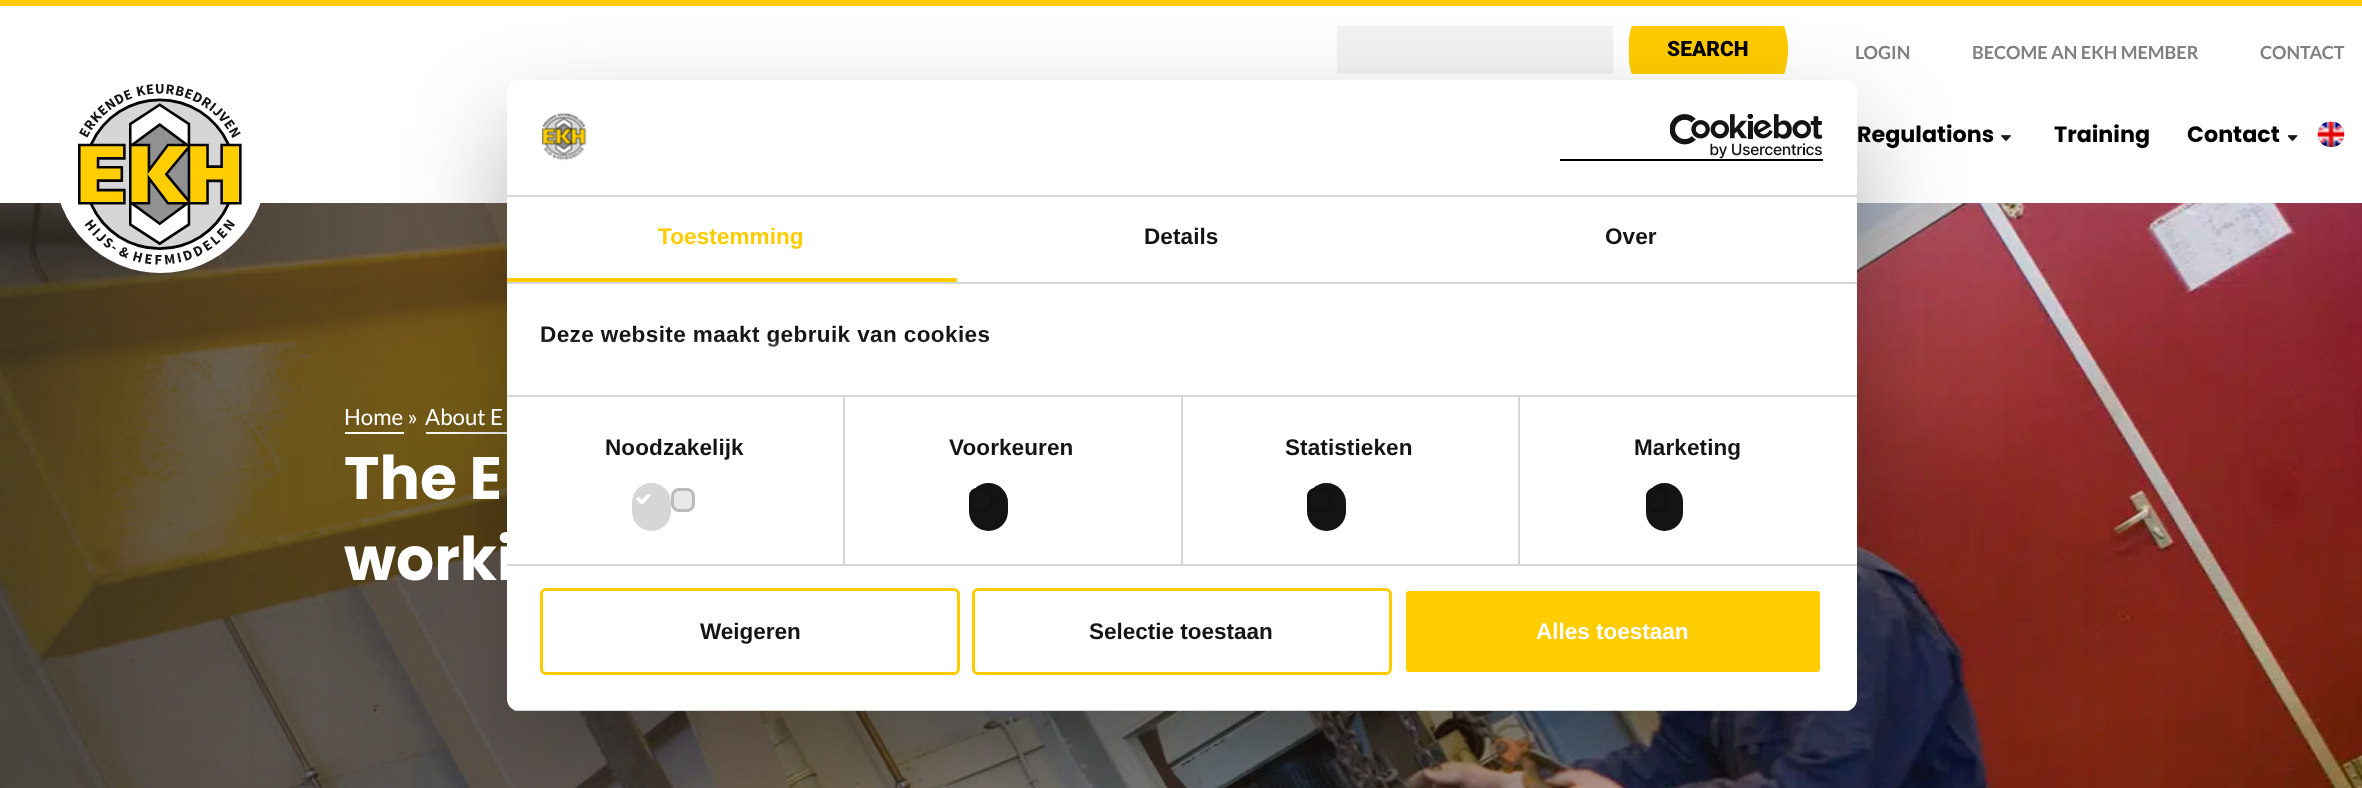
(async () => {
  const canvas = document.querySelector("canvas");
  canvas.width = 2362;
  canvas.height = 788;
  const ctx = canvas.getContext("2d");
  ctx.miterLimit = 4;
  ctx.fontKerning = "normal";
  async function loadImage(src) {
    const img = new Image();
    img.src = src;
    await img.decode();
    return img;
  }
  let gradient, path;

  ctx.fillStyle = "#ffffff";
  ctx.fillRect(0, 0, 2362, 788);
  ctx.fillStyle = "#ffcc00";
  ctx.fillRect(0, 0, 2362, 6);
  ctx.fillStyle = "#f2f2f2";
  ctx.fillRect(1337, 26, 276, 48);
  ctx.fillStyle = "#ffcc00";
  path = new Path2D("M1629 39L1632 26H1784C1789 42 1789 59 1784 74H1632C1628 62 1629 52 1629 39Z");
  ctx.fill(path);
  path = new Path2D("M1632 29V71H1785L1784 74H1632C1629 65 1629 59 1629 49C1629 40 1629 34 1632 26H1784C1789 40 1789 55 1785 70V29Z");
  ctx.fill(path);
  ctx.drawImage(await loadImage("img/5.png"), 0, 203, 2362, 585);
  ctx.fillStyle = "#ffffff";
  ctx.beginPath();
  ctx.arc(160.5, 166.5, 106.5, 0, Math.PI * 2);
  ctx.fill();
  ctx.drawImage(await loadImage("img/1.png"), 78, 84, 164, 181);
  ctx.drawImage(await loadImage("img/2.png"), 2001, 135, 10, 6);
  ctx.drawImage(await loadImage("img/3.png"), 2288, 135, 10, 6);
  ctx.drawImage(await loadImage("img/4.png"), 2317, 121, 28, 26);
  ctx.fillRect(345, 432, 59, 2);
  ctx.fillRect(426, 432, 81, 2);
  ctx.fillStyle = "rgba(0, 0, 0, 0.06)";
  ctx.filter = "blur(37.5px)";
  ctx.beginPath();
  ctx.rect(353, 455, 1710, 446);
  ctx.fill();
  ctx.filter = "none";
  ctx.fillStyle = "rgba(0, 0, 0, 0.3)";
  ctx.filter = "blur(51px)";
  ctx.beginPath();
  ctx.roundRect(507, 128, 1350, 631, 12);
  ctx.fill();
  ctx.filter = "none";
  ctx.fillStyle = "#ffffff";
  ctx.beginPath();
  ctx.roundRect(507, 80, 1350, 631, 12);
  ctx.fill();
  ctx.fillStyle = "#d6d6d6";
  ctx.fillRect(507, 195, 1350, 2);
  ctx.drawImage(await loadImage("img/6.png"), 542, 113, 45, 48);
  ctx.fillStyle = "#000000";
  ctx.fillRect(1560, 159, 263, 2);
  ctx.drawImage(await loadImage("img/7.png"), 1670, 114, 153, 45);
  for (const [x, y, w, h, color] of [
    [507, 282, 1350, 2, "#d6d6d6"],
    [507, 278, 450, 4, "#ffcc00"],
    [843, 396, 2, 168, "#d6d6d6"],
    [1181, 396, 2, 168, "#d6d6d6"],
    [1518, 396, 2, 168, "#d6d6d6"],
    [507, 395, 1350, 2, "#d6d6d6"],
  ]) {
    ctx.fillStyle = color;
    ctx.fillRect(x, y, w, h);
  }
  ctx.beginPath();
  ctx.roundRect(632, 483, 39, 48, 19.5);
  ctx.fill();
  ctx.drawImage(await loadImage("img/8.png"), 636, 494, 15, 10);
  ctx.fillStyle = "#e9e9e9";
  ctx.beginPath();
  ctx.roundRect(672.5, 489.5, 21, 21, 6.5);
  ctx.fill();
  ctx.strokeStyle = "#bbbbbb";
  ctx.lineWidth = 3;
  ctx.stroke();
  ctx.fillStyle = "#141414";
  ctx.beginPath();
  ctx.roundRect(969, 483, 39, 48, 19.5);
  ctx.fill();
  ctx.beginPath();
  ctx.roundRect(970.5, 489.5, 21, 21, 6.5);
  ctx.strokeStyle = "#111111";
  ctx.stroke();
  ctx.beginPath();
  ctx.roundRect(1307, 483, 39, 48, 19.5);
  ctx.fill();
  ctx.beginPath();
  ctx.roundRect(1308.5, 489.5, 21, 21, 6.5);
  ctx.stroke();
  ctx.beginPath();
  ctx.roundRect(1646, 483, 37, 48, 18.5);
  ctx.fill();
  ctx.beginPath();
  ctx.roundRect(1647.5, 489.5, 19, 21, 6.5);
  ctx.stroke();
  ctx.save();
  ctx.beginPath();
  ctx.roundRect(507, 80, 1350, 631, 12);
  ctx.clip();
  ctx.fillStyle = "#d6d6d6";
  ctx.fillRect(507, 710, 1350, 1);
  ctx.restore();
  ctx.beginPath();
  ctx.roundRect(541.5, 589.5, 417, 84, 4.5);
  ctx.strokeStyle = "#ffcc00";
  ctx.stroke();
  ctx.beginPath();
  ctx.roundRect(973.5, 589.5, 417, 84, 4.5);
  ctx.stroke();
  ctx.fillStyle = "#ffcc00";
  ctx.beginPath();
  ctx.roundRect(1404.5, 589.5, 417, 84, 4.5);
  ctx.fill();
  ctx.strokeStyle = "#ffffff";
  ctx.stroke();
  ctx.font = "900 21px Roboto";
  ctx.fillStyle = "#000000";
  ctx.fillText("SEARCH", 1667, 56);
  ctx.font = "bold 18px Lato";
  ctx.fillStyle = "#808080";
  for (const [text, x, y] of [
    ["LOGIN", 1855, 59],
    ["BECOME AN EKH MEMBER", 1972, 59],
    ["CONTACT", 2260, 59],
  ]) {
    ctx.fillText(text, x, y);
  }
  ctx.font = "bold 22.25px Poppins";
  ctx.fillStyle = "#000000";
  for (const [text, x, y] of [
    ["Regulations", 1857, 142],
    ["Training", 2054, 142],
    ["Contact", 2187, 142],
  ]) {
    ctx.fillText(text, x, y);
  }
  ctx.font = "22.25px Lato";
  ctx.fillStyle = "#ffffff";
  ctx.fillText("Home »", 344, 425);
  ctx.fillText("About E", 425, 425);
  ctx.font = "bold 60px Poppins";
  ctx.fillText("The E", 344, 499);
  ctx.fillText("worki", 344, 580);
  ctx.letterSpacing = "0.1px";
  ctx.font = "bold 22.5px Liberation Sans";
  ctx.fillStyle = "#ffcc00";
  ctx.fillText("Toestemming", 658, 244);
  ctx.fillStyle = "#141414";
  ctx.fillText("Details", 1144, 244);
  ctx.fillText("Over", 1605, 244);
  ctx.letterSpacing = "0.4px";
  ctx.fillText("Deze website maakt gebruik van cookies", 540, 342);
  gradient = ctx.createLinearGradient(1166, 394, 1166, 338);
  gradient.addColorStop(0, "#ffffff");
  gradient.addColorStop(0.5, "rgba(255, 255, 255, 0.8)");
  gradient.addColorStop(1, "rgba(255, 255, 255, 0)");
  ctx.fillStyle = gradient;
  ctx.fillRect(541, 339, 447, 8);
  ctx.fillStyle = "#d6d6d6";
  ctx.fillRect(507, 564, 1350, 2);
  ctx.letterSpacing = "0.1px";
  ctx.fillStyle = "#141414";
  for (const [text, x, y] of [
    ["Noodzakelijk", 605, 455],
    ["Voorkeuren", 949, 455],
    ["Statistieken", 1285, 455],
    ["Marketing", 1634, 455],
  ]) {
    ctx.fillText(text, x, y);
  }
  ctx.letterSpacing = "0px";
  ctx.fillText("Weigeren", 700, 639);
  ctx.fillText("Selectie toestaan", 1089, 639);
  ctx.fillStyle = "#ffffff";
  ctx.fillText("Alles toestaan", 1536, 639);
})();
